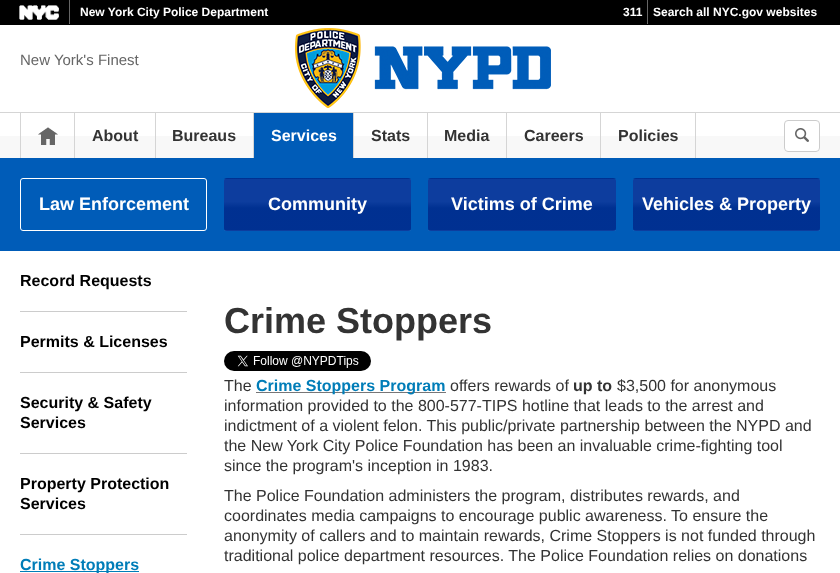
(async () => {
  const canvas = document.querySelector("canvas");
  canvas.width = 840;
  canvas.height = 573;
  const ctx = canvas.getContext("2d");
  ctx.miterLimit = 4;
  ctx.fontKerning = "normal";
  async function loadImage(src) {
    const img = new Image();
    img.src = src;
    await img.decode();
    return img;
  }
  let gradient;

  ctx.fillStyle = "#ffffff";
  ctx.fillRect(0, 0, 840, 573);
  ctx.fillStyle = "#f8f8f8";
  ctx.fillRect(0, 136, 840, 22);
  ctx.fillStyle = "#000000";
  ctx.fillRect(0, 0, 840, 25);
  ctx.drawImage(await loadImage("img/1.png"), 19, 5, 40, 15);
  ctx.drawImage(await loadImage("img/2.png"), 69, 0, 1, 24);
  ctx.drawImage(await loadImage("img/2.png"), 647, 0, 1, 24);
  ctx.fillStyle = "#d5d5d5";
  ctx.fillRect(0, 112, 840, 1);
  ctx.drawImage(await loadImage("img/3.png"), 295, 28, 256, 80);
  ctx.fillRect(74, 113, 1, 45);
  ctx.fillRect(20, 113, 1, 45);
  ctx.drawImage(await loadImage("img/4.png"), 38, 127, 20, 18);
  for (const [x, y, w, h, color] of [
    [155, 113, 1, 45, "#d5d5d5"],
    [253, 113, 1, 45, "#d5d5d5"],
    [254, 113, 99, 45, "#005cb8"],
    [353, 113, 1, 45, "#d5d5d5"],
    [427, 113, 1, 45, "#d5d5d5"],
    [506, 113, 1, 45, "#d5d5d5"],
    [600, 113, 1, 45, "#d5d5d5"],
    [695, 113, 1, 45, "#d5d5d5"],
  ]) {
    ctx.fillStyle = color;
    ctx.fillRect(x, y, w, h);
  }
  ctx.fillStyle = "#ffffff";
  ctx.beginPath();
  ctx.roundRect(784, 120, 36, 32, 4);
  ctx.fill();
  ctx.drawImage(await loadImage("img/5.png"), 795, 128, 14, 14);
  ctx.beginPath();
  ctx.roundRect(784.5, 120.5, 35, 31, 3.5);
  ctx.strokeStyle = "#cccccc";
  ctx.stroke();
  ctx.fillStyle = "#005cb8";
  ctx.fillRect(0, 158, 840, 93);
  ctx.beginPath();
  ctx.roundRect(20.5, 178.5, 186, 52, 2.5);
  ctx.strokeStyle = "#ffffff";
  ctx.stroke();
  ctx.fillStyle = "#003399";
  ctx.beginPath();
  ctx.roundRect(224, 178, 187, 53, 3);
  ctx.fill();
  gradient = ctx.createLinearGradient(318, 179, 318, 128);
  gradient.addColorStop(0, "rgba(0, 0, 0, 0.05)");
  gradient.addColorStop(0.43, "rgba(0, 0, 0, 0.05)");
  gradient.addColorStop(0.56, "rgba(255, 255, 255, 0.05)");
  gradient.addColorStop(1, "rgba(255, 255, 255, 0.05)");
  ctx.fillStyle = gradient;
  ctx.fillRect(224, 178, 187, 1);
  gradient = ctx.createLinearGradient(318, 230, 318, 179);
  gradient.addColorStop(0, "rgba(0, 0, 0, 0.05)");
  gradient.addColorStop(0.43, "rgba(0, 0, 0, 0.05)");
  gradient.addColorStop(0.56, "rgba(255, 255, 255, 0.05)");
  gradient.addColorStop(1, "rgba(255, 255, 255, 0.05)");
  ctx.fillStyle = gradient;
  ctx.fillRect(224, 179, 187, 51);
  gradient = ctx.createLinearGradient(318, 281, 318, 230);
  gradient.addColorStop(0, "rgba(0, 0, 0, 0.05)");
  gradient.addColorStop(0.43, "rgba(0, 0, 0, 0.05)");
  gradient.addColorStop(0.56, "rgba(255, 255, 255, 0.05)");
  gradient.addColorStop(1, "rgba(255, 255, 255, 0.05)");
  ctx.fillStyle = gradient;
  ctx.fillRect(224, 230, 187, 1);
  ctx.fillStyle = "#003399";
  ctx.beginPath();
  ctx.roundRect(428, 178, 188, 53, 3);
  ctx.fill();
  gradient = ctx.createLinearGradient(522, 179, 522, 128);
  gradient.addColorStop(0, "rgba(0, 0, 0, 0.05)");
  gradient.addColorStop(0.43, "rgba(0, 0, 0, 0.05)");
  gradient.addColorStop(0.56, "rgba(255, 255, 255, 0.05)");
  gradient.addColorStop(1, "rgba(255, 255, 255, 0.05)");
  ctx.fillStyle = gradient;
  ctx.fillRect(428, 178, 188, 1);
  gradient = ctx.createLinearGradient(522, 230, 522, 179);
  gradient.addColorStop(0, "rgba(0, 0, 0, 0.05)");
  gradient.addColorStop(0.43, "rgba(0, 0, 0, 0.05)");
  gradient.addColorStop(0.56, "rgba(255, 255, 255, 0.05)");
  gradient.addColorStop(1, "rgba(255, 255, 255, 0.05)");
  ctx.fillStyle = gradient;
  ctx.fillRect(428, 179, 188, 51);
  gradient = ctx.createLinearGradient(522, 281, 522, 230);
  gradient.addColorStop(0, "rgba(0, 0, 0, 0.05)");
  gradient.addColorStop(0.43, "rgba(0, 0, 0, 0.05)");
  gradient.addColorStop(0.56, "rgba(255, 255, 255, 0.05)");
  gradient.addColorStop(1, "rgba(255, 255, 255, 0.05)");
  ctx.fillStyle = gradient;
  ctx.fillRect(428, 230, 188, 1);
  ctx.fillStyle = "#003399";
  ctx.beginPath();
  ctx.roundRect(633, 178, 187, 53, 3);
  ctx.fill();
  gradient = ctx.createLinearGradient(727, 179, 727, 128);
  gradient.addColorStop(0, "rgba(0, 0, 0, 0.05)");
  gradient.addColorStop(0.43, "rgba(0, 0, 0, 0.05)");
  gradient.addColorStop(0.56, "rgba(255, 255, 255, 0.05)");
  gradient.addColorStop(1, "rgba(255, 255, 255, 0.05)");
  ctx.fillStyle = gradient;
  ctx.fillRect(633, 178, 187, 1);
  gradient = ctx.createLinearGradient(727, 230, 727, 179);
  gradient.addColorStop(0, "rgba(0, 0, 0, 0.05)");
  gradient.addColorStop(0.43, "rgba(0, 0, 0, 0.05)");
  gradient.addColorStop(0.56, "rgba(255, 255, 255, 0.05)");
  gradient.addColorStop(1, "rgba(255, 255, 255, 0.05)");
  ctx.fillStyle = gradient;
  ctx.fillRect(633, 179, 187, 51);
  gradient = ctx.createLinearGradient(727, 281, 727, 230);
  gradient.addColorStop(0, "rgba(0, 0, 0, 0.05)");
  gradient.addColorStop(0.43, "rgba(0, 0, 0, 0.05)");
  gradient.addColorStop(0.56, "rgba(255, 255, 255, 0.05)");
  gradient.addColorStop(1, "rgba(255, 255, 255, 0.05)");
  ctx.fillStyle = gradient;
  ctx.fillRect(633, 230, 187, 1);
  for (const [x, y, w, h, color] of [
    [20, 311, 167, 1, "#cccccc"],
    [20, 372, 167, 1, "#cccccc"],
    [20, 453, 167, 1, "#cccccc"],
    [20, 534, 167, 1, "#cccccc"],
    [20, 571, 119, 1, "#007db8"],
  ]) {
    ctx.fillStyle = color;
    ctx.fillRect(x, y, w, h);
  }
  ctx.drawImage(await loadImage("img/6.png"), 224, 351, 147, 20);
  ctx.fillStyle = "#777677";
  ctx.fillRect(256, 392, 190, 1);
  ctx.font = "bold 12px Liberation Sans";
  ctx.fillStyle = "#ffffff";
  for (const [text, x, y] of [
    ["New York City Police Department", 80, 16],
    ["311", 623, 16],
    ["Search all NYC.gov websites", 653, 16],
  ]) {
    ctx.fillText(text, x, y);
  }
  ctx.font = "15px Liberation Sans";
  ctx.fillStyle = "#666666";
  ctx.fillText("New York's Finest", 20, 65);
  ctx.font = "bold 16px Liberation Sans";
  ctx.fillStyle = "#333333";
  ctx.fillText("About", 92, 141);
  ctx.fillText("Bureaus", 172, 141);
  ctx.fillStyle = "#ffffff";
  ctx.fillText("Services", 271, 141);
  ctx.fillStyle = "#333333";
  for (const [text, x, y] of [
    ["Stats", 371, 141],
    ["Media", 444, 141],
    ["Careers", 524, 141],
    ["Policies", 618, 141],
  ]) {
    ctx.fillText(text, x, y);
  }
  ctx.font = "bold 18px Liberation Sans";
  ctx.fillStyle = "#ffffff";
  for (const [text, x, y] of [
    ["Law Enforcement", 39, 210],
    ["Community", 268, 210],
    ["Victims of Crime", 451, 210],
    ["Vehicles & Property", 642, 210],
  ]) {
    ctx.fillText(text, x, y);
  }
  ctx.font = "bold 16px Liberation Sans";
  ctx.fillStyle = "#000000";
  for (const [text, x, y] of [
    ["Record Requests", 20, 286],
    ["Permits & Licenses", 20, 347],
    ["Security & Safety", 20, 408],
    ["Services", 20, 428],
    ["Property Protection", 20, 489],
    ["Services", 20, 509],
  ]) {
    ctx.fillText(text, x, y);
  }
  ctx.fillStyle = "#007db8";
  ctx.fillText("Crime Stoppers", 20, 570);
  ctx.font = "bold 36px Liberation Sans";
  ctx.fillStyle = "#333333";
  ctx.fillText("Crime Stoppers", 224, 333);
  ctx.font = "16px Liberation Sans";
  ctx.fillText("The", 224, 391);
  ctx.font = "bold 16px Liberation Sans";
  ctx.fillStyle = "#007db8";
  ctx.fillText("Crime Stoppers Program", 256, 391);
  ctx.font = "16px Liberation Sans";
  ctx.fillStyle = "#333333";
  ctx.fillText("offers rewards of", 450, 391);
  ctx.font = "bold 16px Liberation Sans";
  ctx.fillText("up to", 573, 391);
  ctx.font = "16px Liberation Sans";
  for (const [text, x, y] of [
    ["$3,500 for anonymous", 617, 391],
    ["information provided to the 800-577-TIPS hotline that leads to the arrest and", 224, 411],
    ["indictment of a violent felon. This public/private partnership between the NYPD and", 224, 431],
    ["the New York City Police Foundation has been an invaluable crime-fighting tool", 224, 451],
    ["since the program's inception in 1983.", 224, 471],
    ["The Police Foundation administers the program, distributes rewards, and", 224, 501],
    ["coordinates media campaigns to encourage public awareness. To ensure the", 224, 521],
    ["anonymity of callers and to maintain rewards, Crime Stoppers is not funded through", 224, 541],
    ["traditional police department resources. The Police Foundation relies on donations", 224, 561],
  ]) {
    ctx.fillText(text, x, y);
  }
})();
